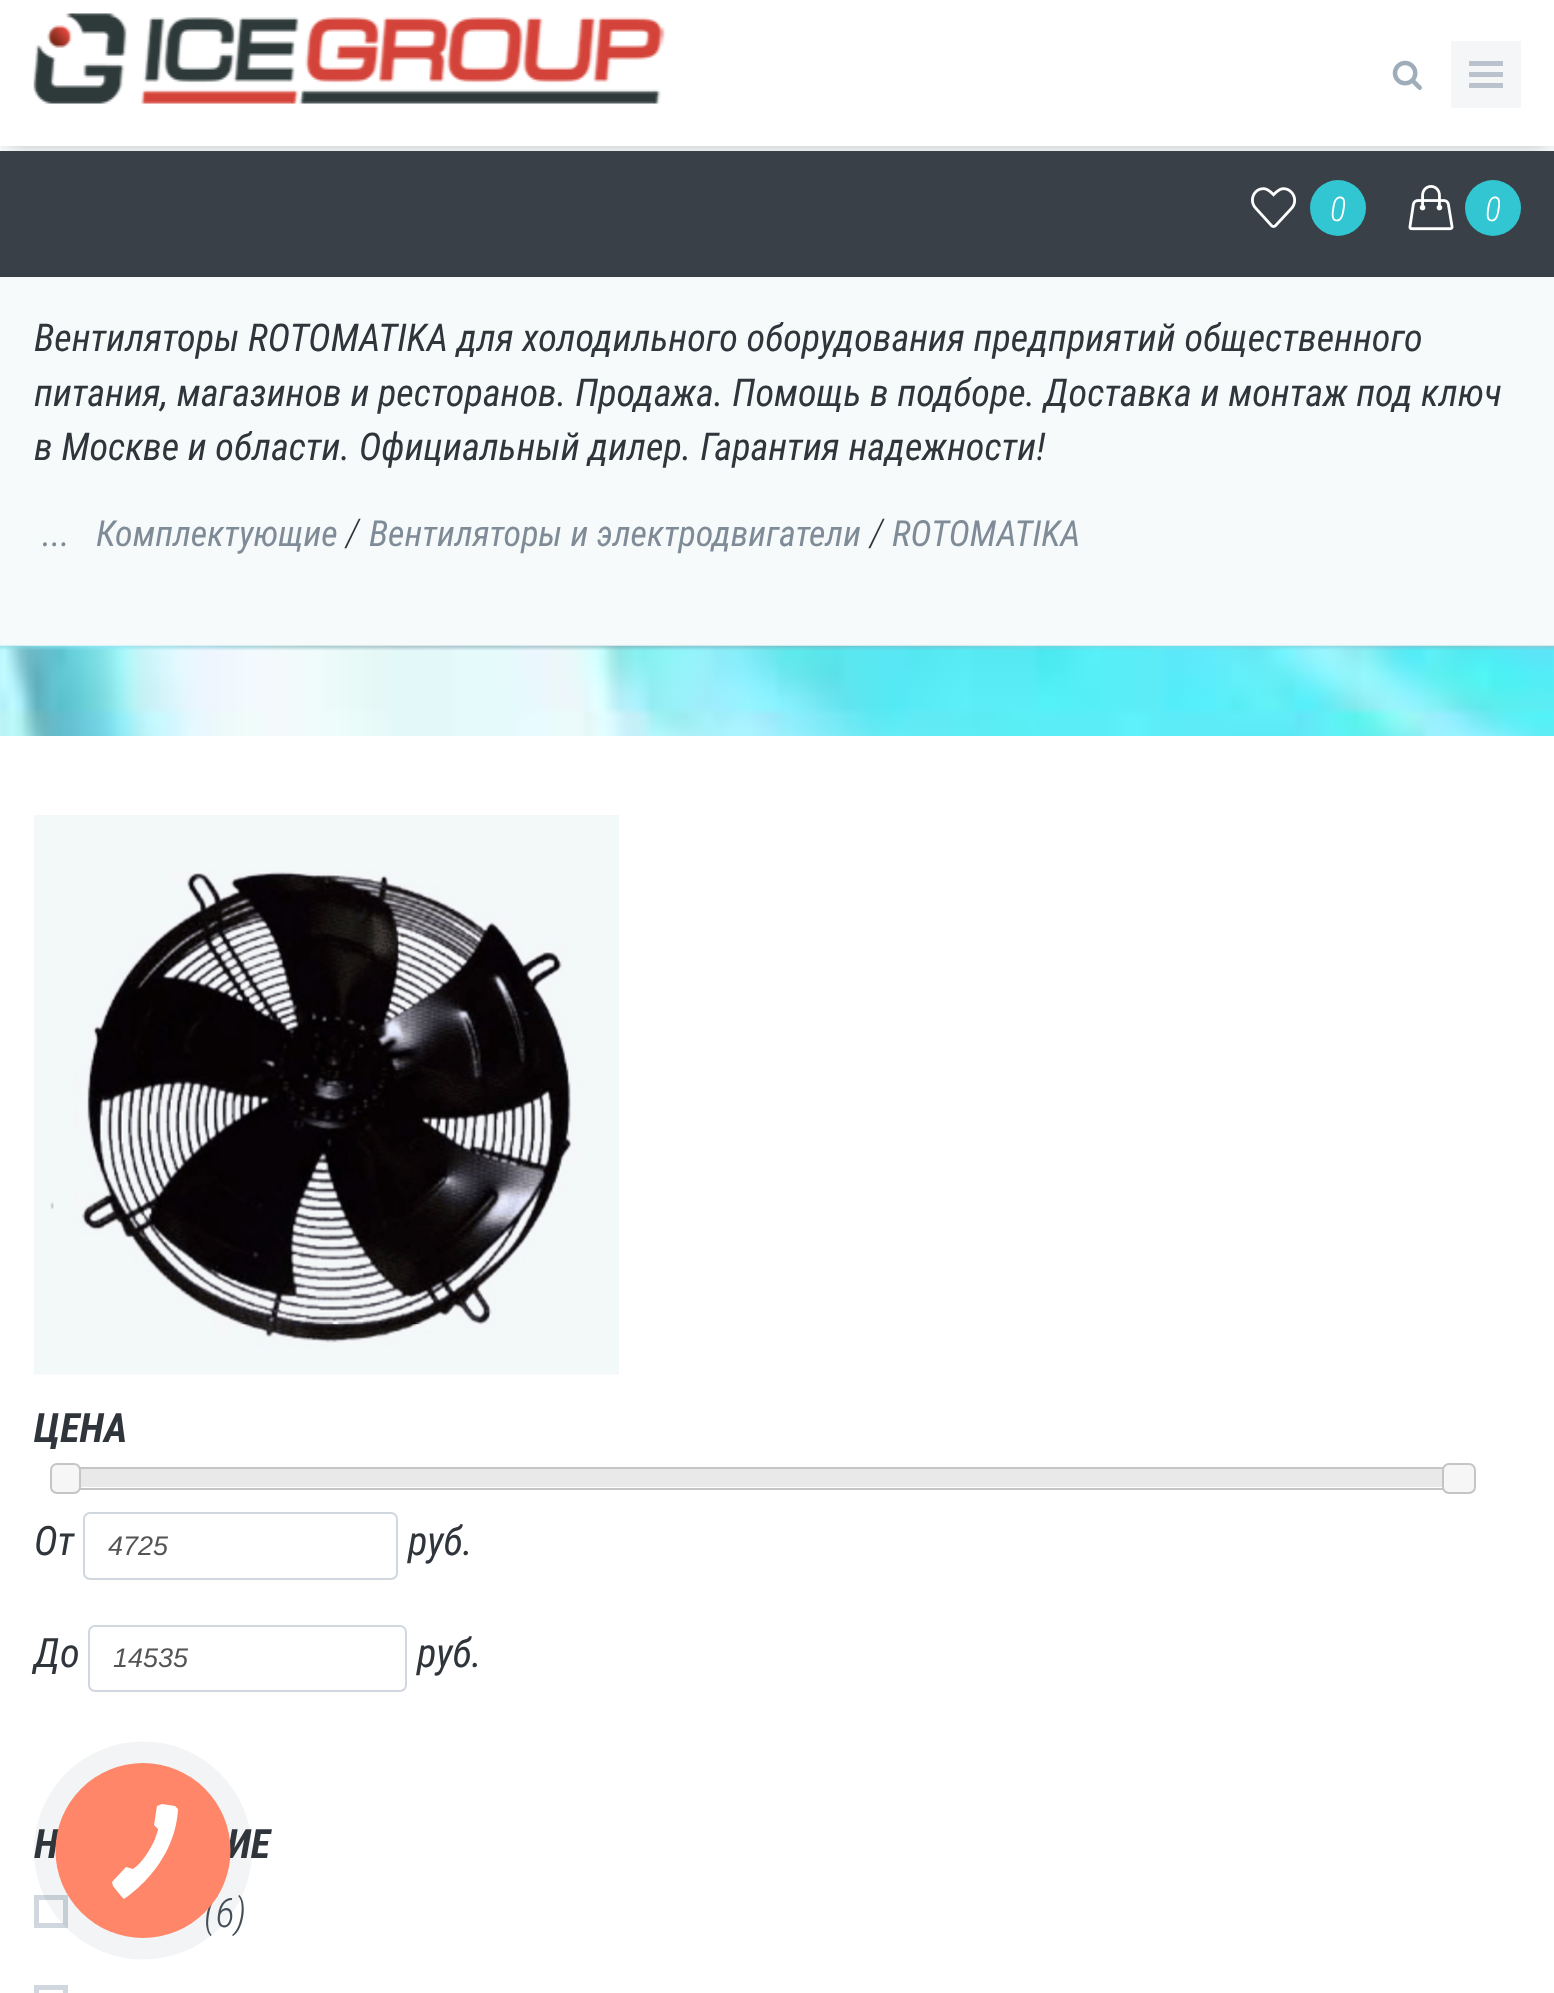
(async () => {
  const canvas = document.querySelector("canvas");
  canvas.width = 1554;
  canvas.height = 1993;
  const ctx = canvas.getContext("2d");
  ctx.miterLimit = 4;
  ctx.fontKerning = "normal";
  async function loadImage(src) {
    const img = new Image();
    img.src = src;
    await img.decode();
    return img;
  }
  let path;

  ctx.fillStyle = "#ffffff";
  ctx.fillRect(0, 0, 1554, 1993);
  ctx.fillStyle = "#f7fafb";
  ctx.fillRect(0, 148, 1554, 496);
  ctx.fillStyle = "#f4f8f9";
  ctx.fillRect(0, 146, 1554, 2);
  ctx.save();
  ctx.beginPath();
  ctx.rect(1, 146, 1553, 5);
  ctx.clip();
  ctx.fillStyle = "rgba(0, 0, 0, 0.25)";
  ctx.filter = "blur(10px)";
  ctx.beginPath();
  ctx.rect(9, 16, 1537, 128);
  ctx.fill();
  ctx.filter = "none";
  ctx.restore();
  ctx.drawImage(await loadImage("img/1.png"), 33, 13, 633, 91);
  ctx.drawImage(await loadImage("img/2.png"), 1392, 60, 30, 30);
  for (const [x, y, w, h, color] of [
    [1451, 41, 70, 67, "#f5f6f8"],
    [1469, 61, 34, 5, "#bac3cd"],
    [1469, 72, 34, 5, "#bac3cd"],
    [1469, 83, 34, 5, "#bac3cd"],
    [0, 151, 1554, 126, "#394048"],
  ]) {
    ctx.fillStyle = color;
    ctx.fillRect(x, y, w, h);
  }
  ctx.drawImage(await loadImage("img/3.png"), 1251, 187, 46, 41);
  ctx.fillStyle = "#32c5d2";
  ctx.beginPath();
  ctx.arc(1338, 208, 28, 0, Math.PI * 2);
  ctx.fill();
  ctx.drawImage(await loadImage("img/4.png"), 1408, 185, 46, 46);
  ctx.beginPath();
  ctx.arc(1493, 208, 28, 0, Math.PI * 2);
  ctx.fill();
  ctx.fillStyle = "#f4f8f9";
  ctx.fillRect(0, 644, 1554, 2);
  ctx.drawImage(await loadImage("img/5.png"), 0, 645, 1554, 91);
  ctx.drawImage(await loadImage("img/6.png"), 34, 815, 585, 560);
  ctx.strokeStyle = "#c5c5c5";
  ctx.lineWidth = 2;
  ctx.strokeRect(64, 1468, 1398, 21);
  ctx.fillStyle = "#e9e9e9";
  ctx.fillRect(80, 1469, 1363, 18);
  ctx.fillStyle = "#f6f6f6";
  ctx.beginPath();
  ctx.roundRect(51, 1464, 29, 29, 6);
  ctx.fill();
  ctx.stroke();
  ctx.beginPath();
  ctx.roundRect(1443, 1464, 32, 29, 6);
  ctx.fill();
  ctx.stroke();
  ctx.beginPath();
  ctx.roundRect(84, 1513, 313, 66, 6);
  ctx.strokeStyle = "#d0d7de";
  ctx.stroke();
  ctx.beginPath();
  ctx.roundRect(89, 1626, 317, 65, 6);
  ctx.stroke();
  ctx.lineWidth = 5;
  ctx.strokeRect(36.5, 1897.5, 29, 28);
  ctx.strokeRect(36.5, 1987.5, 29, 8);
  ctx.fillStyle = "rgba(42, 64, 93, 0.06)";
  ctx.beginPath();
  ctx.arc(143, 1850.5, 109, 0, Math.PI * 2);
  ctx.fill();
  ctx.font = "italic 300 34px Roboto Condensed";
  ctx.fillStyle = "#ffffff";
  ctx.fillText("0", 1330, 221);
  ctx.fillText("0", 1485, 221);
  ctx.font = "italic 38.25px Roboto Condensed";
  ctx.fillStyle = "#2f353b";
  for (const [text, x, y] of [
    ["Вентиляторы ROTOMATIKA для холодильного оборудования предприятий общественного", 34, 351],
    ["питания, магазинов и ресторанов. Продажа. Помощь в подборе. Доставка и монтаж под ключ", 34, 406],
    ["в Москве и области. Официальный дилер. Гарантия надежности!", 34, 460],
  ]) {
    ctx.fillText(text, x, y);
  }
  ctx.font = "italic 36px Roboto Condensed";
  ctx.fillStyle = "#7f8c97";
  ctx.fillText("...", 42, 546);
  ctx.fillText("Комплектующие", 96, 546);
  ctx.font = "italic 300 38.25px Roboto Condensed";
  ctx.fillStyle = "#2f353b";
  ctx.fillText("/", 346, 546);
  ctx.font = "italic 36px Roboto Condensed";
  ctx.fillStyle = "#7f8c97";
  ctx.fillText("Вентиляторы и электродвигатели", 369, 546);
  ctx.font = "italic 300 38.25px Roboto Condensed";
  ctx.fillStyle = "#2f353b";
  ctx.fillText("/", 870, 546);
  ctx.font = "italic 36px Roboto Condensed";
  ctx.fillStyle = "#7f8c97";
  ctx.fillText("ROTOMATIKA", 892, 546);
  ctx.font = "italic bold 40.5px Roboto Condensed";
  ctx.fillStyle = "#2f353b";
  ctx.fillText("ЦЕНА", 34, 1442);
  ctx.font = "italic 40.5px Roboto Condensed";
  ctx.fillText("От", 34, 1555);
  ctx.font = "italic 27px Liberation Sans";
  ctx.fillStyle = "#555555";
  ctx.fillText("4725", 108, 1555);
  ctx.font = "italic 40.5px Roboto Condensed";
  ctx.fillStyle = "#2f353b";
  ctx.fillText("руб.", 408, 1555);
  ctx.fillText("До", 34, 1667);
  ctx.font = "italic 27px Liberation Sans";
  ctx.fillStyle = "#555555";
  ctx.fillText("14535", 113, 1667);
  ctx.font = "italic 40.5px Roboto Condensed";
  ctx.fillStyle = "#2f353b";
  ctx.fillText("руб.", 417, 1667);
  ctx.font = "italic bold 40.5px Roboto Condensed";
  ctx.fillText("Н", 34, 1858);
  ctx.fillText("ИЕ", 227, 1858);
  ctx.font = "italic 300 40.5px Roboto Condensed";
  ctx.fillStyle = "#454e56";
  ctx.fillText("(6)", 204, 1927);
  ctx.fillStyle = "#ff8668";
  ctx.beginPath();
  ctx.arc(143, 1850.5, 87.5, 0, Math.PI * 2);
  ctx.fill();
  ctx.fillStyle = "#ffffff";
  path = new Path2D("M158 1830L155 1839C150 1850 143 1862 133 1869L126 1867L112 1882L113 1886L121 1896L124 1899C124 1899 175 1867 178 1809L175 1806L162 1804L157 1806L154 1825L158 1829");
  ctx.fill(path, "evenodd");
})();
